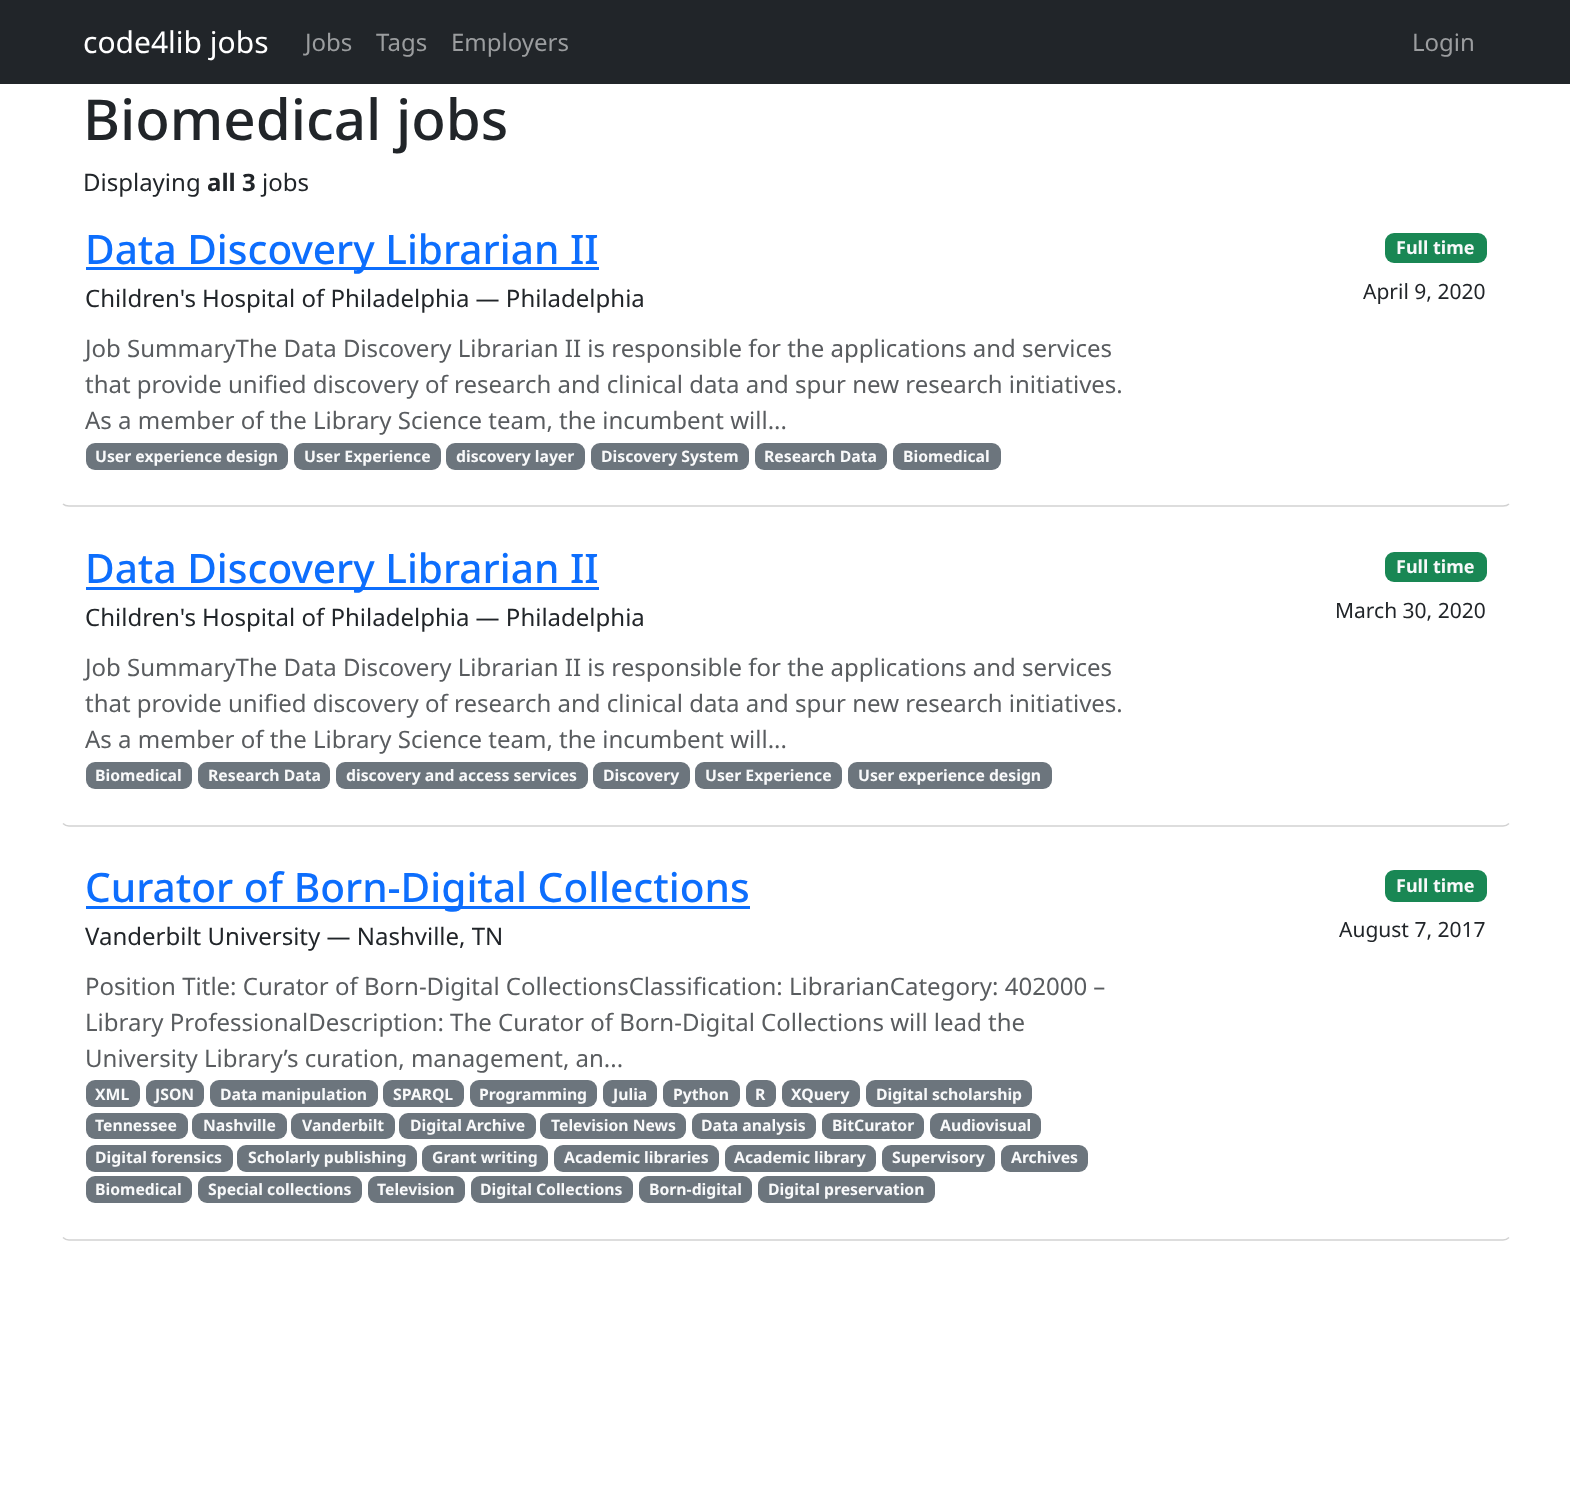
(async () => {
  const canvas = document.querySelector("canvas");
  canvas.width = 1570;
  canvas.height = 1491;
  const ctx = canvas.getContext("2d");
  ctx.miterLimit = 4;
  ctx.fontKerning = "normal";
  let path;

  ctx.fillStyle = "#ffffff";
  ctx.fillRect(0, 0, 1570, 1491);
  ctx.fillStyle = "#212529";
  ctx.fillRect(0, 0, 1570, 84);
  path = new Path2D("M1509 504C1507.5 505.5 1505 506 1503 506H69C67 506 64.5 505.5 63 504");
  ctx.strokeStyle = "#d2d2d2";
  ctx.lineWidth = 1.5;
  ctx.stroke(path);
  ctx.fillStyle = "#0d6efd";
  ctx.fillRect(86, 267, 513, 3);
  ctx.fillStyle = "#198754";
  ctx.beginPath();
  ctx.roundRect(1385, 233, 102, 30, 9);
  ctx.fill();
  ctx.fillStyle = "#6c757d";
  ctx.beginPath();
  ctx.roundRect(86, 443, 202, 27, 9);
  ctx.fill();
  ctx.beginPath();
  ctx.roundRect(294, 443, 147, 27, 9);
  ctx.fill();
  ctx.beginPath();
  ctx.roundRect(446, 443, 139, 27, 9);
  ctx.fill();
  ctx.beginPath();
  ctx.roundRect(591, 443, 158, 27, 9);
  ctx.fill();
  ctx.beginPath();
  ctx.roundRect(755, 443, 132, 27, 9);
  ctx.fill();
  ctx.beginPath();
  ctx.roundRect(893, 443, 108, 27, 9);
  ctx.fill();
  path = new Path2D("M1509 823.5C1507.5 825 1505 826 1503 826H69C67 826 64.5 825 63 823.5");
  ctx.stroke(path);
  ctx.fillStyle = "#0d6efd";
  ctx.fillRect(86, 587, 513, 3);
  ctx.fillStyle = "#198754";
  ctx.beginPath();
  ctx.roundRect(1385, 552, 102, 30, 9);
  ctx.fill();
  ctx.fillStyle = "#6c757d";
  ctx.beginPath();
  ctx.roundRect(86, 762, 106, 27, 9);
  ctx.fill();
  ctx.beginPath();
  ctx.roundRect(198, 762, 132, 27, 9);
  ctx.fill();
  ctx.beginPath();
  ctx.roundRect(336, 762, 252, 27, 9);
  ctx.fill();
  ctx.beginPath();
  ctx.roundRect(593, 762, 97, 27, 9);
  ctx.fill();
  ctx.beginPath();
  ctx.roundRect(695, 762, 147, 27, 9);
  ctx.fill();
  ctx.beginPath();
  ctx.roundRect(848, 762, 204, 27, 9);
  ctx.fill();
  path = new Path2D("M1509 1237.5C1507.5 1239 1505 1240 1503 1240H69C67 1240 64.5 1239 63 1237.5");
  ctx.stroke(path);
  ctx.fillStyle = "#0d6efd";
  ctx.fillRect(86, 906, 664, 3);
  ctx.fillStyle = "#198754";
  ctx.beginPath();
  ctx.roundRect(1385, 870, 102, 32, 9);
  ctx.fill();
  ctx.fillStyle = "#6c757d";
  ctx.beginPath();
  ctx.roundRect(86, 1080, 54, 27, 9);
  ctx.fill();
  ctx.beginPath();
  ctx.roundRect(146, 1080, 58, 27, 9);
  ctx.fill();
  ctx.beginPath();
  ctx.roundRect(210, 1080, 168, 27, 9);
  ctx.fill();
  ctx.beginPath();
  ctx.roundRect(383, 1080, 81, 27, 9);
  ctx.fill();
  ctx.beginPath();
  ctx.roundRect(470, 1080, 127, 27, 9);
  ctx.fill();
  ctx.beginPath();
  ctx.roundRect(603, 1080, 54, 27, 9);
  ctx.fill();
  ctx.beginPath();
  ctx.roundRect(663, 1080, 77, 27, 9);
  ctx.fill();
  ctx.beginPath();
  ctx.roundRect(746, 1080, 30, 27, 9);
  ctx.fill();
  ctx.beginPath();
  ctx.roundRect(782, 1080, 78, 27, 9);
  ctx.fill();
  ctx.beginPath();
  ctx.roundRect(866, 1080, 166, 27, 9);
  ctx.fill();
  ctx.beginPath();
  ctx.roundRect(86, 1113, 102, 26, 9);
  ctx.fill();
  ctx.beginPath();
  ctx.roundRect(192, 1113, 95, 26, 9);
  ctx.fill();
  ctx.beginPath();
  ctx.roundRect(291, 1113, 104, 26, 9);
  ctx.fill();
  ctx.beginPath();
  ctx.roundRect(399, 1113, 137, 26, 9);
  ctx.fill();
  ctx.beginPath();
  ctx.roundRect(540, 1113, 146, 26, 9);
  ctx.fill();
  ctx.beginPath();
  ctx.roundRect(692, 1113, 124, 26, 9);
  ctx.fill();
  ctx.beginPath();
  ctx.roundRect(822, 1113, 102, 26, 9);
  ctx.fill();
  ctx.beginPath();
  ctx.roundRect(930, 1113, 111, 26, 9);
  ctx.fill();
  ctx.beginPath();
  ctx.roundRect(86, 1145, 147, 27, 9);
  ctx.fill();
  ctx.beginPath();
  ctx.roundRect(237, 1145, 180, 27, 9);
  ctx.fill();
  ctx.beginPath();
  ctx.roundRect(422, 1145, 126, 27, 9);
  ctx.fill();
  ctx.beginPath();
  ctx.roundRect(554, 1145, 165, 27, 9);
  ctx.fill();
  ctx.beginPath();
  ctx.roundRect(725, 1145, 151, 27, 9);
  ctx.fill();
  ctx.beginPath();
  ctx.roundRect(882, 1145, 113, 27, 9);
  ctx.fill();
  ctx.beginPath();
  ctx.roundRect(1001, 1145, 87, 27, 9);
  ctx.fill();
  ctx.beginPath();
  ctx.roundRect(86, 1176, 106, 27, 9);
  ctx.fill();
  ctx.beginPath();
  ctx.roundRect(198, 1176, 164, 27, 9);
  ctx.fill();
  ctx.beginPath();
  ctx.roundRect(368, 1176, 97, 27, 9);
  ctx.fill();
  ctx.beginPath();
  ctx.roundRect(471, 1176, 162, 27, 9);
  ctx.fill();
  ctx.beginPath();
  ctx.roundRect(639, 1176, 113, 27, 9);
  ctx.fill();
  ctx.beginPath();
  ctx.roundRect(758, 1176, 177, 27, 9);
  ctx.fill();
  ctx.font = "30px Noto Sans";
  ctx.fillStyle = "#ffffff";
  ctx.fillText("code4lib jobs", 83, 53);
  ctx.font = "24px Noto Sans";
  ctx.fillStyle = "#9b9d9f";
  for (const [text, x, y] of [
    ["Jobs", 305, 51],
    ["Tags", 376, 51],
    ["Employers", 451, 51],
    ["Login", 1412, 51],
  ]) {
    ctx.fillText(text, x, y);
  }
  ctx.font = "500 56.5px Noto Sans";
  ctx.fillStyle = "#212529";
  ctx.fillText("Biomedical jobs", 83, 140);
  ctx.font = "24px Noto Sans";
  ctx.fillText("Displaying", 83, 191);
  ctx.font = "bold 24px Noto Sans";
  ctx.fillText("all 3", 207, 191);
  ctx.font = "24px Noto Sans";
  ctx.fillText("jobs", 262, 191);
  ctx.font = "500 40.6px Noto Sans";
  ctx.fillStyle = "#0d6efd";
  ctx.fillText("Data Discovery Librarian II", 85, 264);
  ctx.font = "24px Noto Sans";
  ctx.fillStyle = "#212529";
  ctx.fillText("Children's Hospital of Philadelphia — Philadelphia", 85, 307);
  ctx.font = "bold 18px Noto Sans";
  ctx.fillStyle = "#f8f9fa";
  ctx.fillText("Full time", 1396, 254);
  ctx.font = "21px Noto Sans";
  ctx.fillStyle = "#212529";
  ctx.fillText("April 9, 2020", 1363, 299);
  ctx.font = "24px Noto Sans";
  ctx.fillStyle = "#595c5f";
  for (const [text, x, y] of [
    ["Job SummaryThe Data Discovery Librarian II is responsible for the applications and services", 85, 357],
    ["that provide unified discovery of research and clinical data and spur new research initiatives.", 85, 393],
    ["As a member of the Library Science team, the incumbent will...", 85, 429],
  ]) {
    ctx.fillText(text, x, y);
  }
  ctx.font = "bold 15.75px Noto Sans";
  ctx.fillStyle = "#f8f9fa";
  for (const [text, x, y] of [
    ["User experience design", 95, 462],
    ["User Experience", 304, 462],
    ["discovery layer", 456, 462],
    ["Discovery System", 601, 462],
    ["Research Data", 764, 462],
    ["Biomedical", 903, 462],
  ]) {
    ctx.fillText(text, x, y);
  }
  ctx.font = "500 40.6px Noto Sans";
  ctx.fillStyle = "#0d6efd";
  ctx.fillText("Data Discovery Librarian II", 85, 583);
  ctx.font = "24px Noto Sans";
  ctx.fillStyle = "#212529";
  ctx.fillText("Children's Hospital of Philadelphia — Philadelphia", 85, 626);
  ctx.font = "bold 18px Noto Sans";
  ctx.fillStyle = "#f8f9fa";
  ctx.fillText("Full time", 1396, 573);
  ctx.font = "21px Noto Sans";
  ctx.fillStyle = "#212529";
  ctx.fillText("March 30, 2020", 1335, 618);
  ctx.font = "24px Noto Sans";
  ctx.fillStyle = "#595c5f";
  for (const [text, x, y] of [
    ["Job SummaryThe Data Discovery Librarian II is responsible for the applications and services", 85, 676],
    ["that provide unified discovery of research and clinical data and spur new research initiatives.", 85, 712],
    ["As a member of the Library Science team, the incumbent will...", 85, 748],
  ]) {
    ctx.fillText(text, x, y);
  }
  ctx.font = "bold 15.75px Noto Sans";
  ctx.fillStyle = "#f8f9fa";
  for (const [text, x, y] of [
    ["Biomedical", 95, 781],
    ["Research Data", 208, 781],
    ["discovery and access services", 346, 781],
    ["Discovery", 603, 781],
    ["User Experience", 705, 781],
    ["User experience design", 858, 781],
  ]) {
    ctx.fillText(text, x, y);
  }
  ctx.font = "500 40.6px Noto Sans";
  ctx.fillStyle = "#0d6efd";
  ctx.fillText("Curator of Born-Digital Collections", 85, 902);
  ctx.font = "24px Noto Sans";
  ctx.fillStyle = "#212529";
  ctx.fillText("Vanderbilt University — Nashville, TN", 85, 945);
  ctx.font = "bold 18px Noto Sans";
  ctx.fillStyle = "#f8f9fa";
  ctx.fillText("Full time", 1396, 892);
  ctx.font = "21px Noto Sans";
  ctx.fillStyle = "#212529";
  ctx.fillText("August 7, 2017", 1339, 937);
  ctx.font = "24px Noto Sans";
  ctx.fillStyle = "#595c5f";
  for (const [text, x, y] of [
    ["Position Title: Curator of Born-Digital CollectionsClassification: LibrarianCategory: 402000 –", 85, 995],
    ["Library ProfessionalDescription: The Curator of Born-Digital Collections will lead the", 85, 1031],
    ["University Library’s curation, management, an...", 85, 1067],
  ]) {
    ctx.fillText(text, x, y);
  }
  ctx.font = "bold 15.75px Noto Sans";
  ctx.fillStyle = "#f8f9fa";
  for (const [text, x, y] of [
    ["XML", 95, 1100],
    ["JSON", 155, 1100],
    ["Data manipulation", 220, 1100],
    ["SPARQL", 393, 1100],
    ["Programming", 479, 1100],
    ["Julia", 613, 1100],
    ["Python", 673, 1100],
    ["R", 755, 1100],
    ["XQuery", 791, 1100],
    ["Digital scholarship", 876, 1100],
    ["Tennessee", 95, 1131],
    ["Nashville", 203, 1131],
    ["Vanderbilt", 302, 1131],
    ["Digital Archive", 410, 1131],
    ["Television News", 551, 1131],
    ["Data analysis", 701, 1131],
    ["BitCurator", 832, 1131],
    ["Audiovisual", 940, 1131],
    ["Digital forensics", 95, 1163],
    ["Scholarly publishing", 248, 1163],
    ["Grant writing", 432, 1163],
    ["Academic libraries", 564, 1163],
    ["Academic library", 734, 1163],
    ["Supervisory", 892, 1163],
    ["Archives", 1011, 1163],
    ["Biomedical", 95, 1195],
    ["Special collections", 208, 1195],
    ["Television", 377, 1195],
    ["Digital Collections", 480, 1195],
    ["Born-digital", 649, 1195],
    ["Digital preservation", 768, 1195],
  ]) {
    ctx.fillText(text, x, y);
  }
})();
